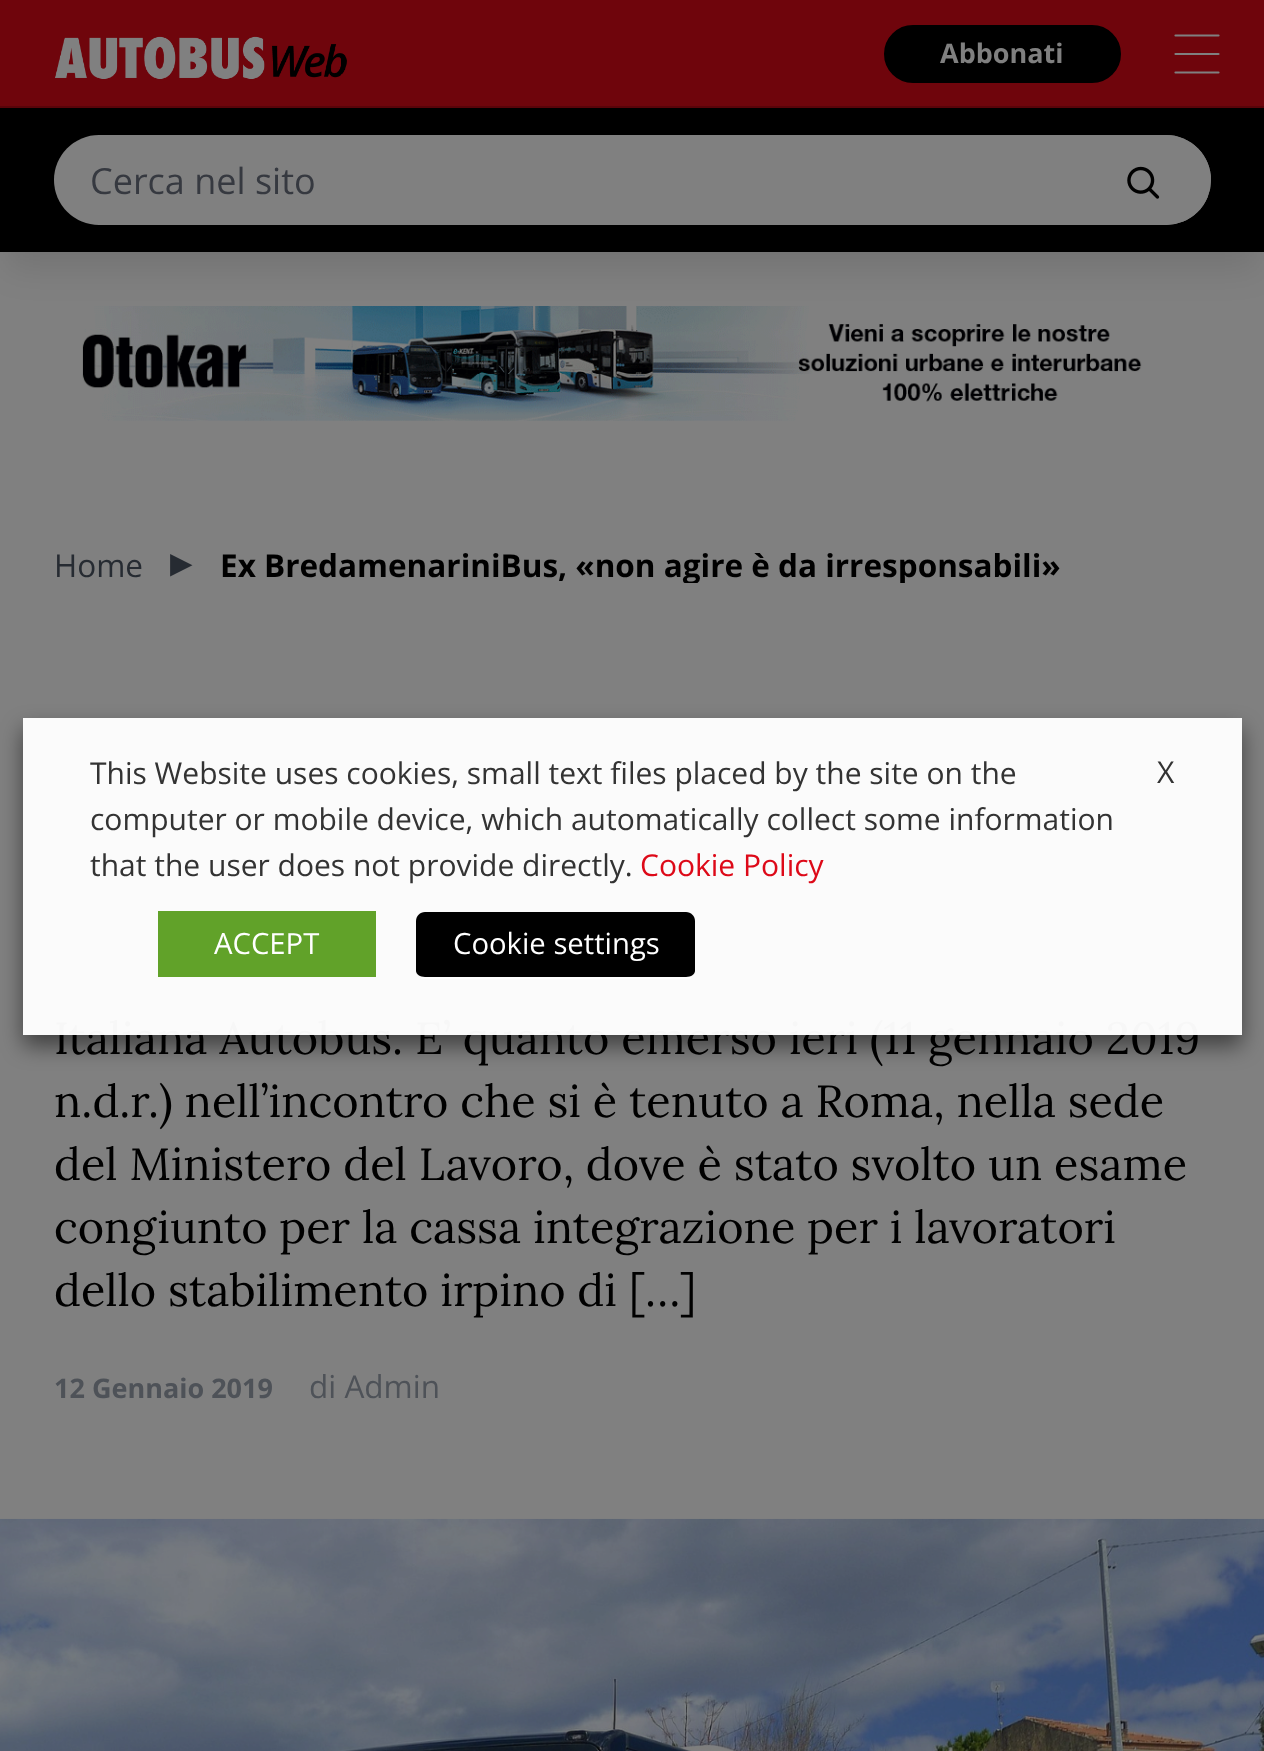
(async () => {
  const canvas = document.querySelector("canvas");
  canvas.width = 1264;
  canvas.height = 1751;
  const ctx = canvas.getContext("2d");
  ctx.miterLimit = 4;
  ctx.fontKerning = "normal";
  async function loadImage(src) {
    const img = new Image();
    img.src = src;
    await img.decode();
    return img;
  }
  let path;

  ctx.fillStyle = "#808080";
  ctx.fillRect(0, 0, 1264, 1751);
  ctx.fillStyle = "rgba(0, 0, 0, 0.1)";
  ctx.filter = "blur(17px)";
  ctx.beginPath();
  ctx.rect(7, 137, 1251, 131);
  ctx.fill();
  ctx.filter = "none";
  ctx.fillStyle = "#6f050c";
  ctx.fillRect(0, 0, 1264, 106);
  ctx.fillStyle = "#59040a";
  ctx.fillRect(0, 106, 1264, 2);
  ctx.drawImage(await loadImage("img/1.png"), 55, 36, 292, 43);
  ctx.fillStyle = "#000000";
  ctx.beginPath();
  ctx.roundRect(885, 26, 235, 56, 28);
  ctx.fill();
  ctx.strokeStyle = "#000000";
  ctx.lineWidth = 2;
  ctx.stroke();
  path = new Path2D("M1175.5 35.5H1218.5M1175.5 54H1218.5M1175.5 72.5H1218.5");
  ctx.strokeStyle = "#808080";
  ctx.lineWidth = 2.2;
  ctx.lineCap = "round";
  ctx.stroke(path);
  ctx.fillRect(0, 108, 1264, 144);
  ctx.fillStyle = "#808080";
  ctx.beginPath();
  ctx.roundRect(54, 135, 1157, 90, 45);
  ctx.fill();
  ctx.beginPath();
  ctx.roundRect(1103, 135, 108, 90, [0, 45, 45, 0]);
  ctx.fill();
  ctx.drawImage(await loadImage("img/2.png"), 1127, 166, 33, 33);
  ctx.drawImage(await loadImage("img/3.png"), 82, 306, 1060, 115);
  ctx.drawImage(await loadImage("img/4.png"), 0, 1518, 1264, 233);
  ctx.save();
  path = new Path2D("M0 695H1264V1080H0ZM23 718H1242V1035H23Z");
  ctx.clip(path, "evenodd");
  ctx.fillStyle = "rgba(0, 0, 0, 0.5)";
  ctx.filter = "blur(11px)";
  ctx.beginPath();
  ctx.rect(23, 729, 1219, 317);
  ctx.fill();
  ctx.filter = "none";
  ctx.restore();
  ctx.font = "bold 27px Open Sans";
  ctx.fillText("Abbonati", 940, 63);
  ctx.font = "36px Open Sans";
  ctx.fillStyle = "#363940";
  ctx.fillText("Cerca nel sito", 90, 194);
  ctx.font = "31.5px Open Sans";
  ctx.fillStyle = "#262b32";
  ctx.fillText("Home", 54, 577);
  ctx.font = "45px DejaVu Sans";
  ctx.fillText("▸", 170, 577);
  ctx.save();
  ctx.beginPath();
  ctx.rect(54, 529, 1157, 54);
  ctx.clip();
  ctx.font = "bold 31.5px Open Sans";
  ctx.fillStyle = "#000000";
  ctx.fillText("Ex BredamenariniBus, «non agire è da irresponsabili»", 220, 577);
  ctx.restore();
  ctx.font = "45px Lora";
  ctx.fillStyle = "#000000";
  for (const [text, x, y] of [
    ["Italiana Autobus. E’ quanto emerso ieri (11 gennaio 2019", 54, 1054],
    ["n.d.r.) nell’incontro che si è tenuto a Roma, nella sede", 54, 1117],
    ["del Ministero del Lavoro, dove è stato svolto un esame", 54, 1180],
    ["congiunto per la cassa integrazione per i lavoratori", 54, 1243],
    ["dello stabilimento irpino di […]", 54, 1306],
  ]) {
    ctx.fillText(text, x, y);
  }
  ctx.font = "bold 27px Open Sans";
  ctx.fillStyle = "#4e5258";
  ctx.fillText("12 Gennaio 2019", 54, 1398);
  ctx.font = "31.5px Open Sans";
  ctx.fillText("di Admin", 309, 1398);
  ctx.fillStyle = "rgba(255, 255, 255, 0.97)";
  ctx.fillRect(23, 718, 1219, 317);
  ctx.font = "30px Open Sans";
  ctx.fillStyle = "#333333";
  for (const [text, x, y] of [
    ["This Website uses cookies, small text files placed by the site on the", 90, 784],
    ["computer or mobile device, which automatically collect some information", 90, 830],
    ["that the user does not provide directly.", 90, 876],
  ]) {
    ctx.fillText(text, x, y);
  }
  ctx.fillStyle = "#dd0918";
  ctx.fillText("Cookie Policy", 640, 876);
  ctx.fillStyle = "#61a229";
  ctx.fillRect(158, 911, 218, 66);
  ctx.font = "29.25px Open Sans";
  ctx.fillStyle = "#ffffff";
  ctx.fillText("ACCEPT", 214, 954);
  ctx.fillStyle = "#000000";
  path = new Path2D("M425 912H686C691 912 695 916 695 921V971C695 974 691 977 686 977H425C420 977 416 974 416 971V921C416 916 420 912 425 912Z");
  ctx.fill(path);
  ctx.fillStyle = "#ffffff";
  ctx.fillRect(421, 977, 270, 2);
  ctx.fillText("Cookie settings", 453, 954);
  ctx.font = "30px Open Sans";
  ctx.fillStyle = "#333333";
  ctx.fillText("X", 1157, 783);
})();
